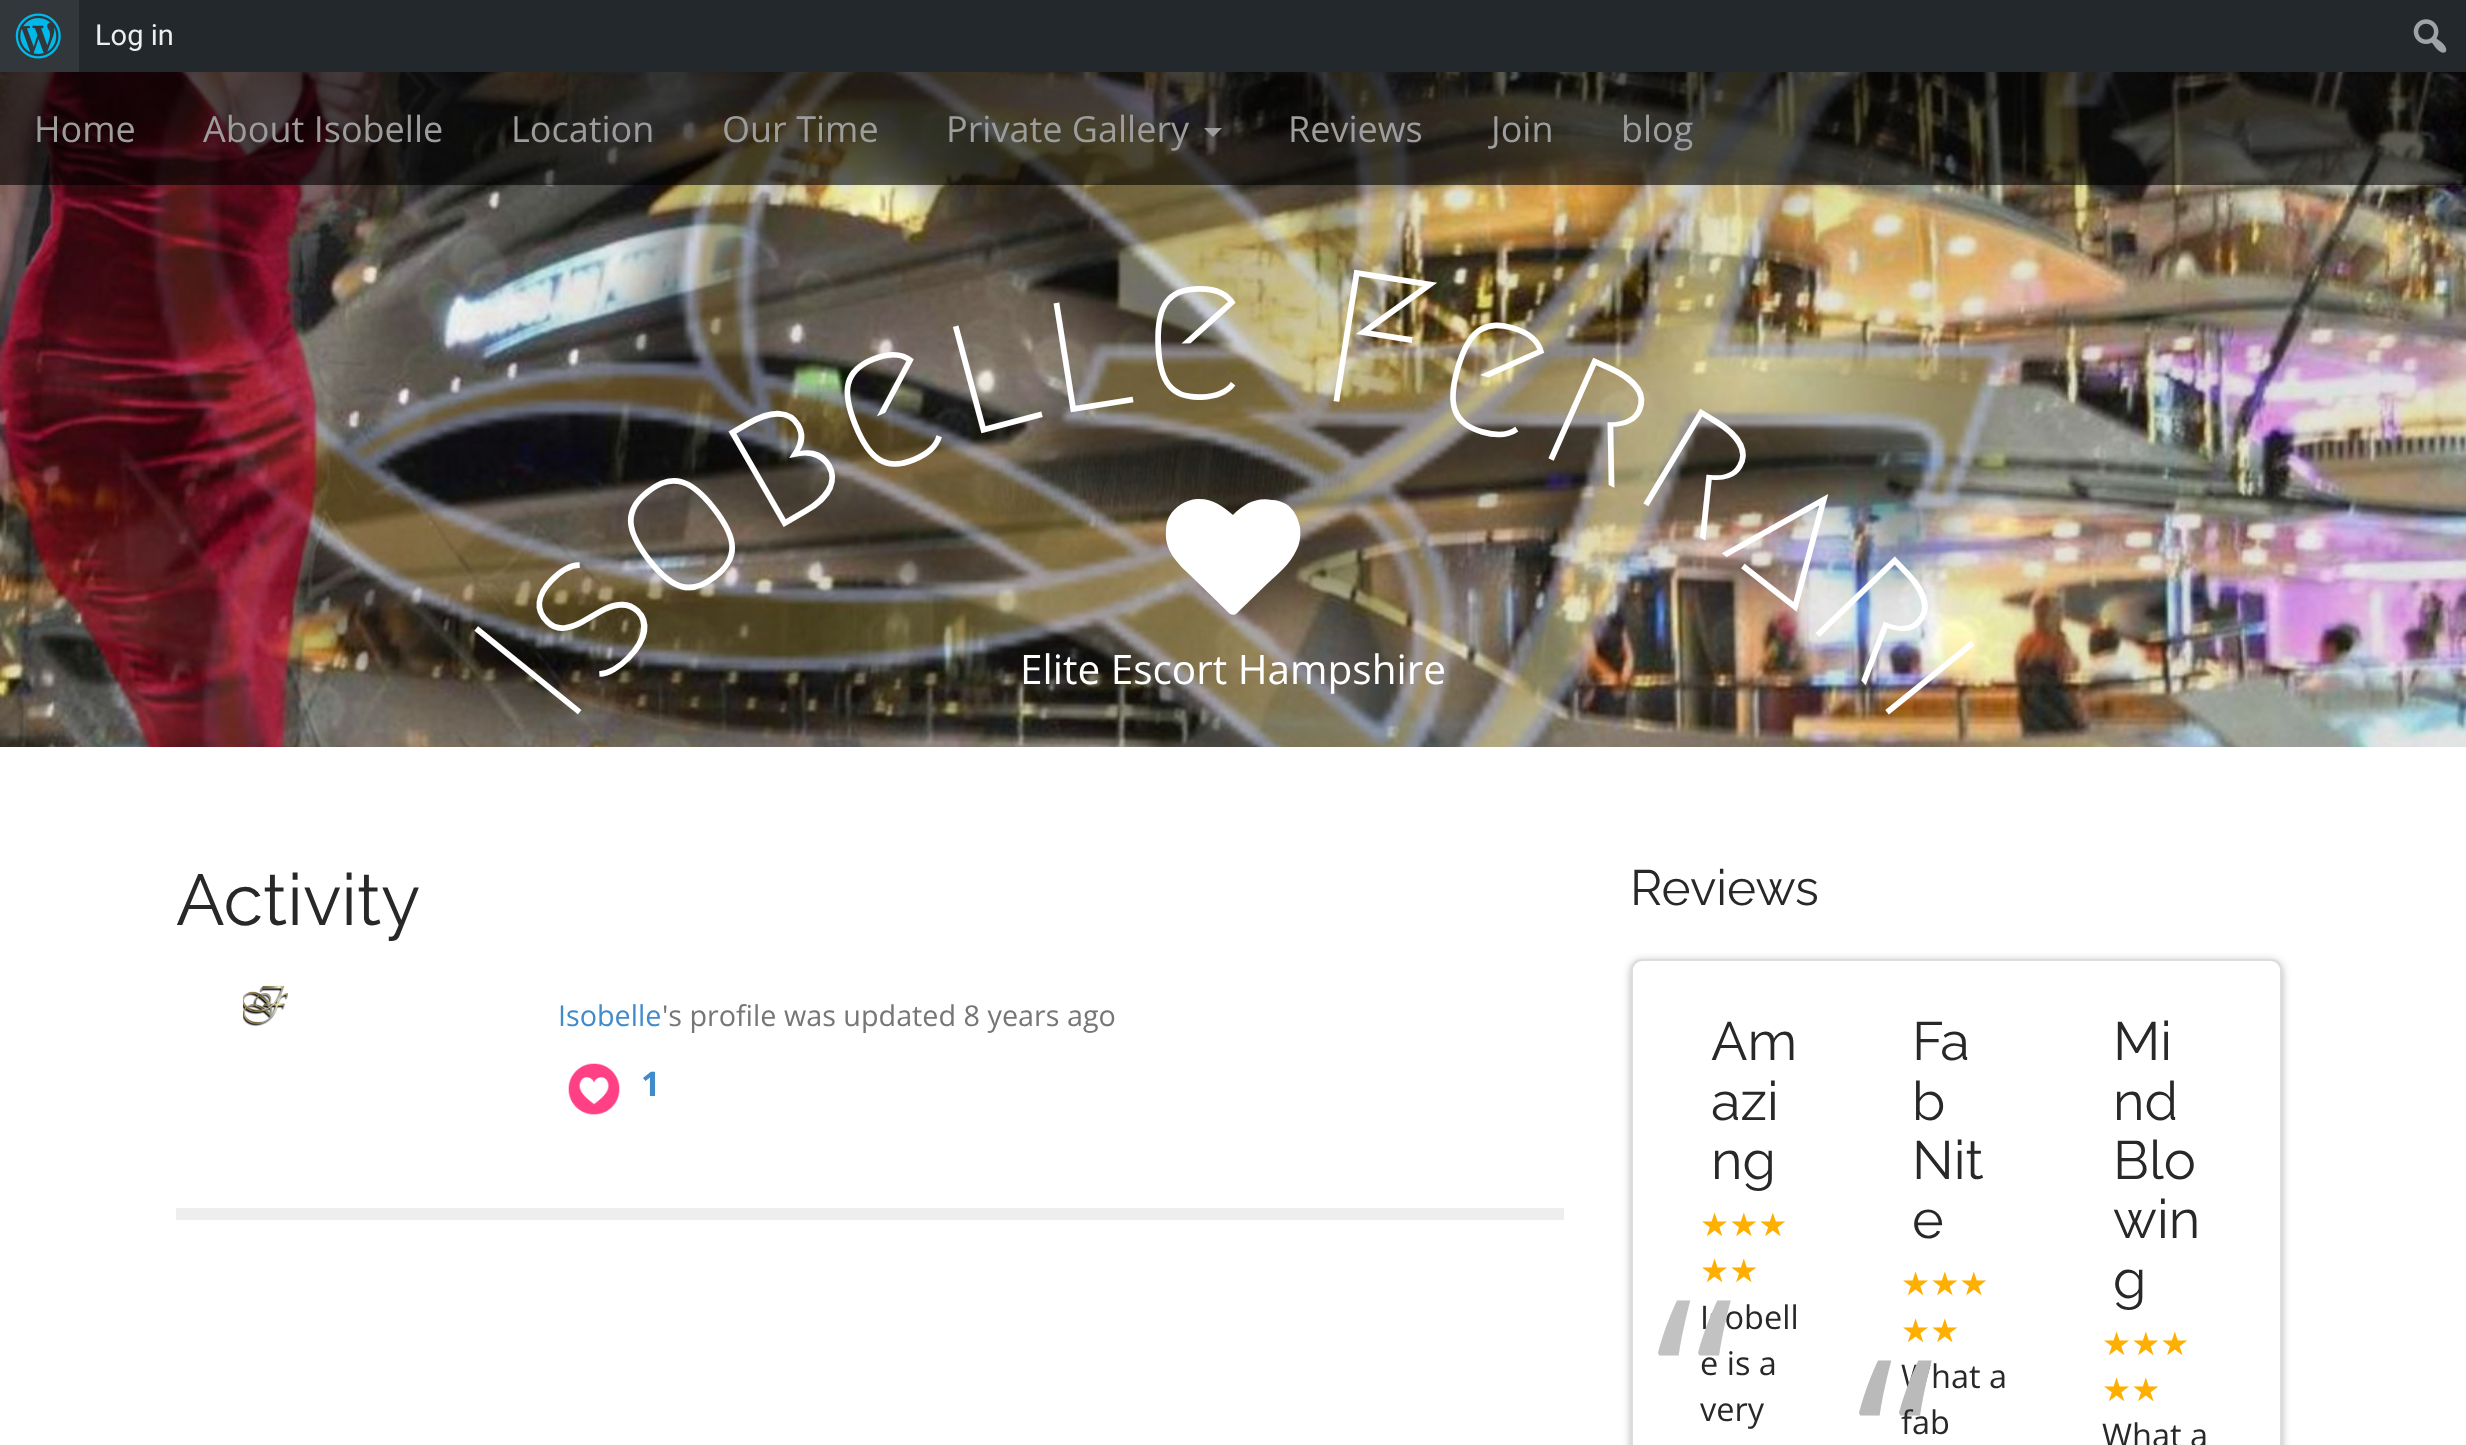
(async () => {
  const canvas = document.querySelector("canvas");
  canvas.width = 2466;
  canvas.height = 1445;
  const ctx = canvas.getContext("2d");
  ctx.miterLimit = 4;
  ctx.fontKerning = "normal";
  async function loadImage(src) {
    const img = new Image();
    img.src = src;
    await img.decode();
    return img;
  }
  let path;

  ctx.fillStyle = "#ffffff";
  ctx.fillRect(0, 0, 2466, 1445);
  ctx.fillStyle = "#23282d";
  ctx.fillRect(79, 0, 2387, 72);
  ctx.fillStyle = "#32373c";
  ctx.fillRect(0, 0, 79, 72);
  ctx.drawImage(await loadImage("img/1.png"), 15, 13, 46, 46);
  ctx.drawImage(await loadImage("img/2.png"), 2413, 19, 34, 34);
  ctx.drawImage(await loadImage("img/3.png"), 0, 72, 2466, 675);
  ctx.fillStyle = "rgba(0, 0, 0, 0.6)";
  ctx.fillRect(0, 72, 2466, 113);
  ctx.fillStyle = "#9d9d9d";
  path = new Path2D("M1204 128H1222L1213 137Z");
  ctx.fill(path);
  ctx.fillStyle = "#ffffff";
  path = new Path2D("M1236 614C1235 615 1232 615 1230 614L1191 576C1177 563 1164 550 1166 530C1166 526 1167 521 1169 517C1175 506 1186 500 1197 499C1211 498 1223 506 1233 515C1244 504 1256 497 1272 500C1277 500 1282 502 1286 504C1294 509 1298 518 1300 527C1301 535 1300 544 1296 551C1290 564 1278 574 1268 583Z");
  ctx.fill(path);
  ctx.fillStyle = "#eeeeee";
  ctx.fillRect(176, 1208, 1388, 12);
  ctx.drawImage(await loadImage("img/4.png"), 243, 985, 45, 42);
  ctx.drawImage(await loadImage("img/5.png"), 568, 1063, 52, 52);
  ctx.fillStyle = "rgba(0, 0, 0, 0.3)";
  ctx.filter = "blur(4.5px)";
  ctx.beginPath();
  ctx.roundRect(1631, 961, 651, 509, 11);
  ctx.fill();
  ctx.filter = "none";
  ctx.fillStyle = "#ffffff";
  ctx.beginPath();
  ctx.roundRect(1632, 960, 649, 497, 10);
  ctx.fill();
  ctx.strokeStyle = "#dddddd";
  ctx.lineWidth = 2;
  ctx.stroke();
  ctx.font = "29px Roboto";
  ctx.fillStyle = "#eeeeee";
  ctx.fillText("Log in", 95, 45);
  ctx.font = "36px Open Sans";
  ctx.fillStyle = "#9d9d9d";
  for (const [text, x, y] of [
    ["Home", 34, 142],
    ["About Isobelle", 203, 142],
    ["Location", 511, 142],
    ["Our Time", 722, 142],
    ["Private Gallery", 946, 142],
    ["Reviews", 1288, 142],
    ["Join", 1491, 142],
    ["blog", 1621, 142],
  ]) {
    ctx.fillText(text, x, y);
  }
  ctx.font = "500 190px Megrim";
  ctx.fillStyle = "#ffffff";
  ctx.save();
  ctx.translate(566, 729);
  ctx.rotate(-51 * Math.PI / 180);
  ctx.fillText("I", 0, 0);
  ctx.restore();
  ctx.save();
  ctx.translate(597, 691);
  ctx.rotate(-46 * Math.PI / 180);
  ctx.fillText("s", 0, 0);
  ctx.restore();
  ctx.save();
  ctx.translate(670, 613);
  ctx.rotate(-38 * Math.PI / 180);
  ctx.fillText("o", 0, 0);
  ctx.restore();
  ctx.save();
  ctx.translate(768, 536);
  ctx.rotate(-30 * Math.PI / 180);
  ctx.fillText("b", 0, 0);
  ctx.restore();
  ctx.save();
  ctx.translate(861, 482);
  ctx.rotate(-22 * Math.PI / 180);
  ctx.fillText("e", 0, 0);
  ctx.restore();
  ctx.save();
  ctx.translate(964, 438);
  ctx.rotate(-15 * Math.PI / 180);
  ctx.fillText("l", 0, 0);
  ctx.restore();
  ctx.save();
  ctx.translate(1053, 415);
  ctx.rotate(-9 * Math.PI / 180);
  ctx.fillText("l", 0, 0);
  ctx.restore();
  ctx.save();
  ctx.translate(1144, 400);
  ctx.rotate(-2 * Math.PI / 180);
  ctx.fillText("e", 0, 0);
  ctx.restore();
  ctx.save();
  ctx.translate(1315, 398);
  ctx.rotate(9 * Math.PI / 180);
  ctx.fillText("F", 0, 0);
  ctx.restore();
  ctx.save();
  ctx.translate(1427, 417);
  ctx.rotate(16 * Math.PI / 180);
  ctx.fillText("e", 0, 0);
  ctx.restore();
  ctx.save();
  ctx.translate(1532, 451);
  ctx.rotate(24 * Math.PI / 180);
  ctx.fillText("r", 0, 0);
  ctx.restore();
  ctx.save();
  ctx.translate(1628, 494);
  ctx.rotate(31 * Math.PI / 180);
  ctx.fillText("r", 0, 0);
  ctx.restore();
  ctx.save();
  ctx.translate(1719, 551);
  ctx.rotate(38 * Math.PI / 180);
  ctx.fillText("a", 0, 0);
  ctx.restore();
  ctx.save();
  ctx.translate(1803, 620);
  ctx.rotate(46 * Math.PI / 180);
  ctx.fillText("r", 0, 0);
  ctx.restore();
  ctx.save();
  ctx.translate(1874, 696);
  ctx.rotate(51 * Math.PI / 180);
  ctx.fillText("i", 0, 0);
  ctx.restore();
  ctx.font = "40.5px Open Sans";
  ctx.fillText("Elite Escort Hampshire", 1020, 684);
  ctx.font = "100 72px Raleway";
  ctx.fillStyle = "#282828";
  ctx.fillText("Activity", 176, 925);
  ctx.font = "28.75px Open Sans";
  ctx.fillStyle = "#428bca";
  ctx.fillText("Isobelle", 558, 1026);
  ctx.fillStyle = "#767676";
  ctx.fillText("'s profile was updated 8 years ago", 662, 1026);
  ctx.font = "bold 34px Open Sans";
  ctx.fillStyle = "#428bca";
  ctx.fillText("1", 641, 1096);
  ctx.font = "100 49.5px Raleway";
  ctx.fillStyle = "#282828";
  ctx.fillText("Reviews", 1630, 905);
  ctx.font = "100 54px Raleway";
  for (const [text, x, y] of [
    ["Am", 1711, 1060],
    ["azi", 1711, 1120],
    ["ng", 1711, 1179],
  ]) {
    ctx.fillText(text, x, y);
  }
  ctx.font = "32.5px DejaVu Sans";
  ctx.fillStyle = "#ffaf00";
  ctx.fillText("★★★", 1700, 1236);
  ctx.fillText("★★", 1700, 1282);
  ctx.font = "32.5px Open Sans";
  ctx.fillStyle = "#282828";
  ctx.fillText("Isobell", 1700, 1329);
  ctx.font = "225px Open Sans";
  ctx.fillStyle = "#c2c2c2";
  ctx.fillText("“", 1655, 1461);
  ctx.font = "32.5px Open Sans";
  ctx.fillStyle = "#282828";
  ctx.fillText("e is a", 1700, 1375);
  ctx.fillText("very", 1700, 1421);
  ctx.font = "100 54px Raleway";
  for (const [text, x, y] of [
    ["Fa", 1912, 1060],
    ["b", 1912, 1120],
    ["Nit", 1912, 1179],
    ["e", 1912, 1238],
  ]) {
    ctx.fillText(text, x, y);
  }
  ctx.font = "32.5px DejaVu Sans";
  ctx.fillStyle = "#ffaf00";
  ctx.fillText("★★★", 1901, 1295);
  ctx.fillText("★★", 1901, 1342);
  ctx.font = "32.5px Open Sans";
  ctx.fillStyle = "#282828";
  ctx.fillText("What a", 1901, 1388);
  ctx.font = "225px Open Sans";
  ctx.fillStyle = "#bababa";
  ctx.fillText("“", 1856, 1521);
  ctx.font = "32.5px Open Sans";
  ctx.fillStyle = "#282828";
  ctx.fillText("fab", 1901, 1434);
  ctx.font = "100 54px Raleway";
  for (const [text, x, y] of [
    ["Mi", 2113, 1060],
    ["nd", 2113, 1120],
    ["Blo", 2113, 1179],
    ["win", 2113, 1238],
    ["g", 2113, 1298],
  ]) {
    ctx.fillText(text, x, y);
  }
  ctx.font = "32.5px DejaVu Sans";
  ctx.fillStyle = "#ffaf00";
  ctx.fillText("★★★", 2102, 1355);
  ctx.fillText("★★", 2102, 1401);
  ctx.font = "32.5px Open Sans";
  ctx.fillStyle = "#282828";
  ctx.fillText("What a", 2102, 1447);
})();
